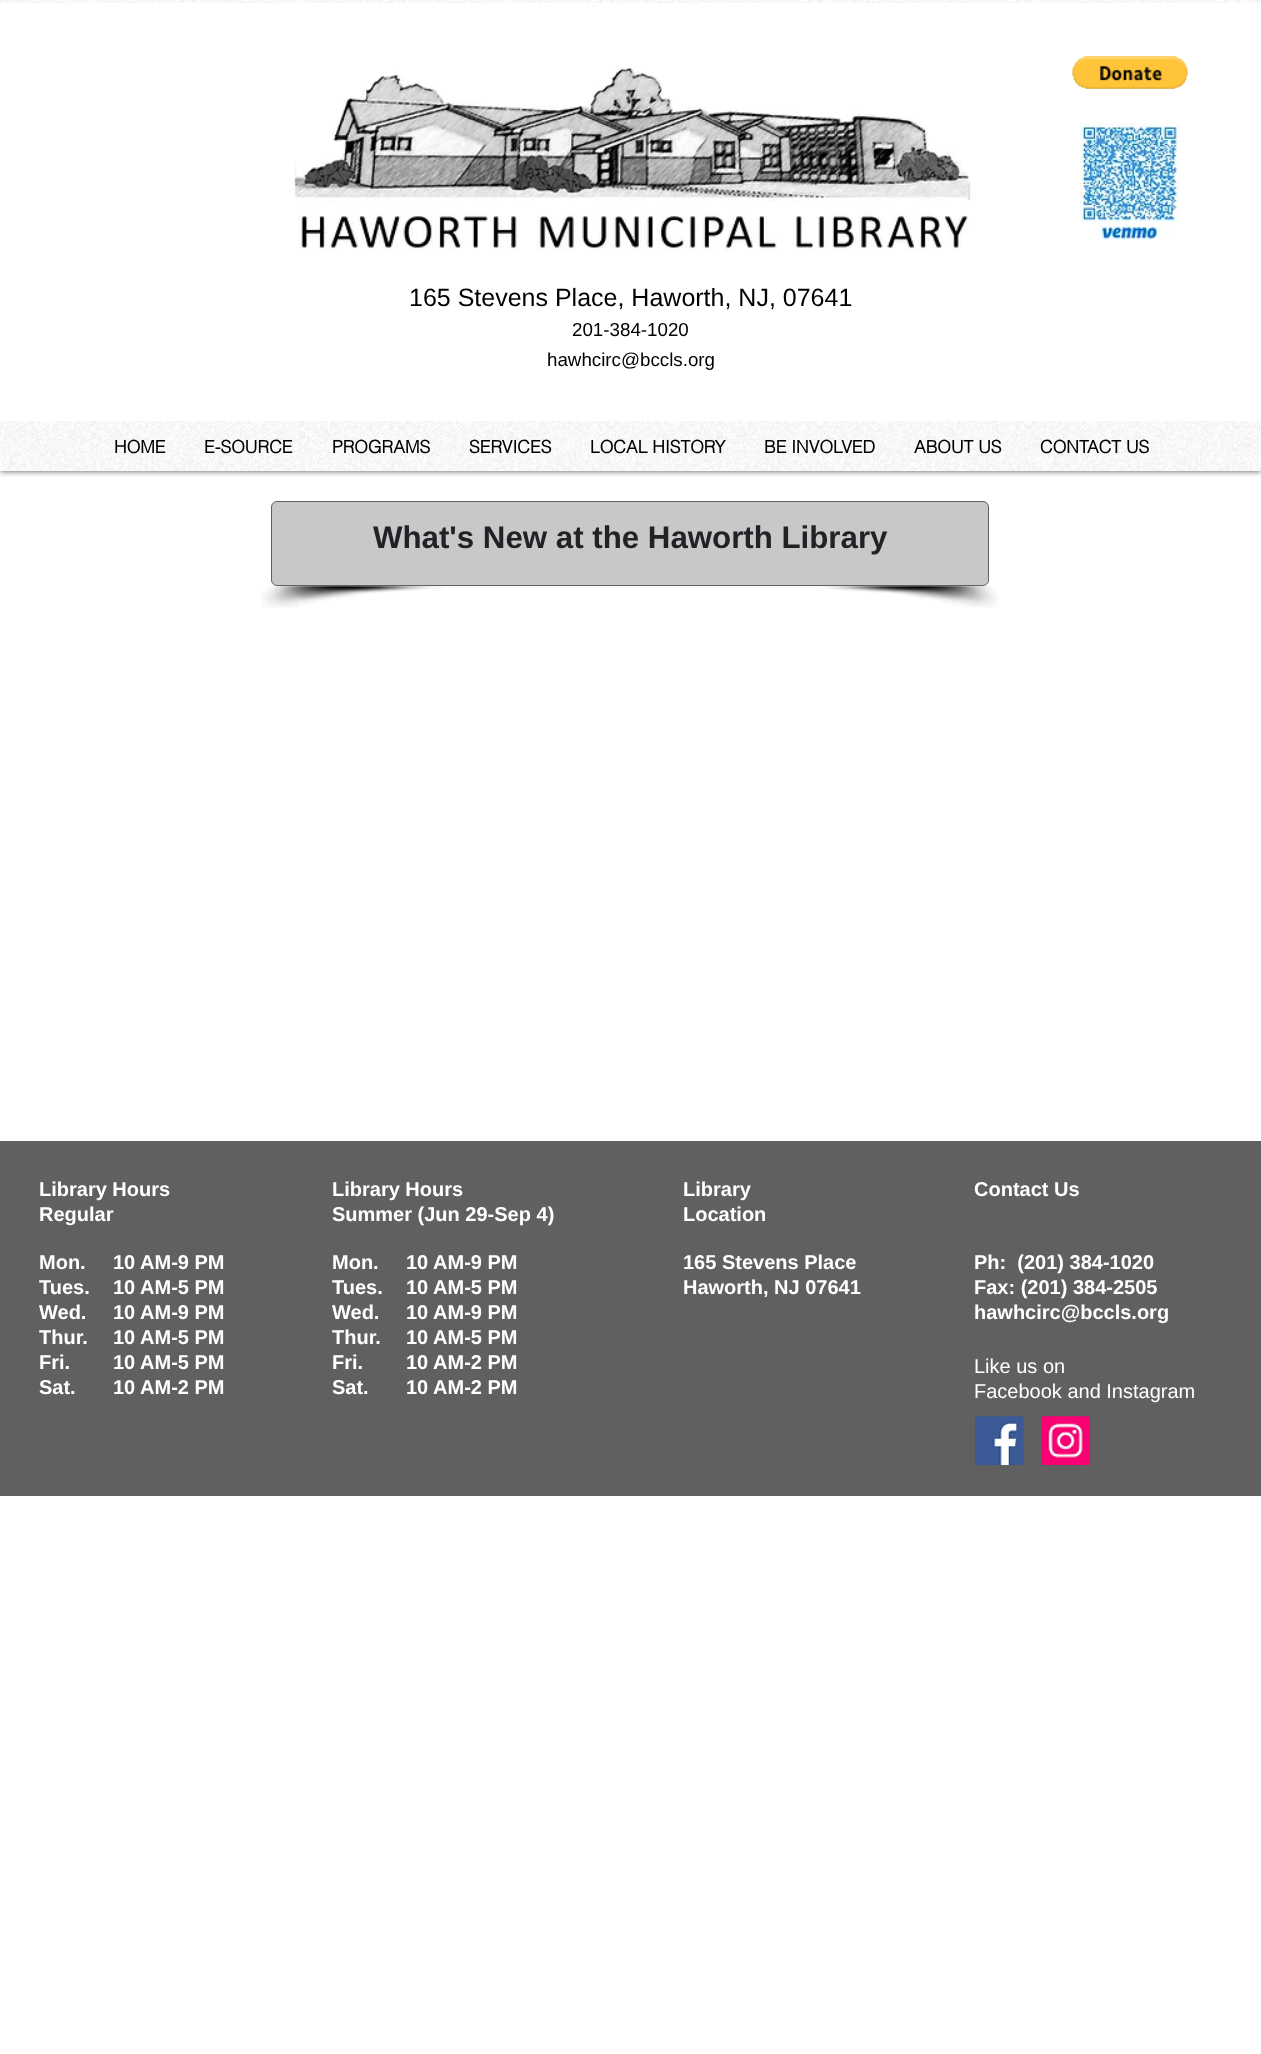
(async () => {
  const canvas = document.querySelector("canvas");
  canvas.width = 1261;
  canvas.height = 2054;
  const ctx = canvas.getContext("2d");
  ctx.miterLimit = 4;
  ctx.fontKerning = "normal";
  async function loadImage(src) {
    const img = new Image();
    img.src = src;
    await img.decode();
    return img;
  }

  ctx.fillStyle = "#ffffff";
  ctx.fillRect(0, 0, 1261, 2054);
  ctx.save();
  ctx.beginPath();
  ctx.rect(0, 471, 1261, 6);
  ctx.clip();
  ctx.fillStyle = "rgba(0, 0, 0, 0.7)";
  ctx.filter = "blur(3px)";
  ctx.beginPath();
  ctx.rect(0, 0, 1261, 471);
  ctx.fill();
  ctx.filter = "none";
  ctx.restore();
  ctx.drawImage(await loadImage("img/1.png"), 0, 0, 1261, 471);
  ctx.fillRect(0, 3, 1261, 418);
  ctx.drawImage(await loadImage("img/2.png"), 294, 67, 678, 184);
  ctx.drawImage(await loadImage("img/3.png"), 1072, 56, 116, 33);
  ctx.drawImage(await loadImage("img/4.png"), 1080, 123, 100, 117);
  ctx.fillStyle = "#c8c8c9";
  ctx.beginPath();
  ctx.roundRect(271.5, 501.5, 717, 84, 5.5);
  ctx.fill();
  ctx.strokeStyle = "#606060";
  ctx.stroke();
  ctx.drawImage(await loadImage("img/5.png"), 261, 586, 183, 22);
  ctx.drawImage(await loadImage("img/6.png"), 816, 586, 183, 22);
  ctx.fillStyle = "#606060";
  ctx.fillRect(0, 1141, 1261, 355);
  ctx.drawImage(await loadImage("img/7.png"), 975, 1416, 49, 49);
  ctx.drawImage(await loadImage("img/8.png"), 1041, 1416, 49, 49);
  ctx.font = "25px Liberation Sans";
  ctx.fillStyle = "#000000";
  ctx.fillText("165 Stevens Place, Haworth, NJ, 07641", 409, 306);
  ctx.font = "18.75px Liberation Sans";
  ctx.fillText("201-384-1020", 572, 336);
  ctx.fillText("hawhcirc@bccls.org", 547, 366);
  ctx.font = "bold 17.5px helvetica";
  for (const [text, x, y] of [
    ["HOME", 114, 453],
    ["E-SOURCE", 204, 453],
    ["PROGRAMS", 332, 453],
    ["SERVICES", 469, 453],
    ["LOCAL HISTORY", 590, 453],
    ["BE INVOLVED", 764, 453],
    ["ABOUT US", 914, 453],
    ["CONTACT US", 1040, 453],
  ]) {
    ctx.fillText(text, x, y);
  }
  ctx.font = "bold 31.25px Liberation Sans";
  ctx.fillStyle = "#212126";
  ctx.fillText("What's New at the Haworth Library", 373, 548);
  ctx.font = "bold 20px Liberation Sans";
  ctx.fillStyle = "#ffffff";
  for (const [text, x, y] of [
    ["Library Hours", 39, 1196],
    ["Regular", 39, 1221],
    ["Library Hours", 332, 1196],
    ["Summer (Jun 29-Sep 4)", 332, 1221],
    ["Library", 683, 1196],
    ["Location", 683, 1221],
    ["Contact Us", 974, 1196],
    ["Mon.", 39, 1269],
    ["Tues.", 39, 1294],
    ["Wed.", 39, 1319],
    ["Thur.", 39, 1344],
    ["Fri.", 39, 1369],
    ["Sat.", 39, 1394],
    ["10 AM-9 PM", 113, 1269],
    ["10 AM-5 PM", 113, 1294],
    ["10 AM-9 PM", 113, 1319],
    ["10 AM-5 PM", 113, 1344],
    ["10 AM-5 PM", 113, 1369],
    ["10 AM-2 PM", 113, 1394],
    ["Mon.", 332, 1269],
    ["Tues.", 332, 1294],
    ["Wed.", 332, 1319],
    ["Thur.", 332, 1344],
    ["Fri.", 332, 1369],
    ["Sat.", 332, 1394],
    ["10 AM-9 PM", 406, 1269],
    ["10 AM-5 PM", 406, 1294],
    ["10 AM-9 PM", 406, 1319],
    ["10 AM-5 PM", 406, 1344],
    ["10 AM-2 PM", 406, 1369],
    ["10 AM-2 PM", 406, 1394],
    ["165 Stevens Place", 683, 1269],
    ["Haworth, NJ 07641", 683, 1294],
    ["Ph:  (201) 384-1020", 974, 1269],
    ["Fax: (201) 384-2505", 974, 1294],
    ["hawhcirc@bccls.org", 974, 1319],
  ]) {
    ctx.fillText(text, x, y);
  }
  ctx.font = "20px Liberation Sans";
  ctx.fillText("Like us on", 974, 1373);
  ctx.fillText("Facebook and Instagram", 974, 1398);
})();
